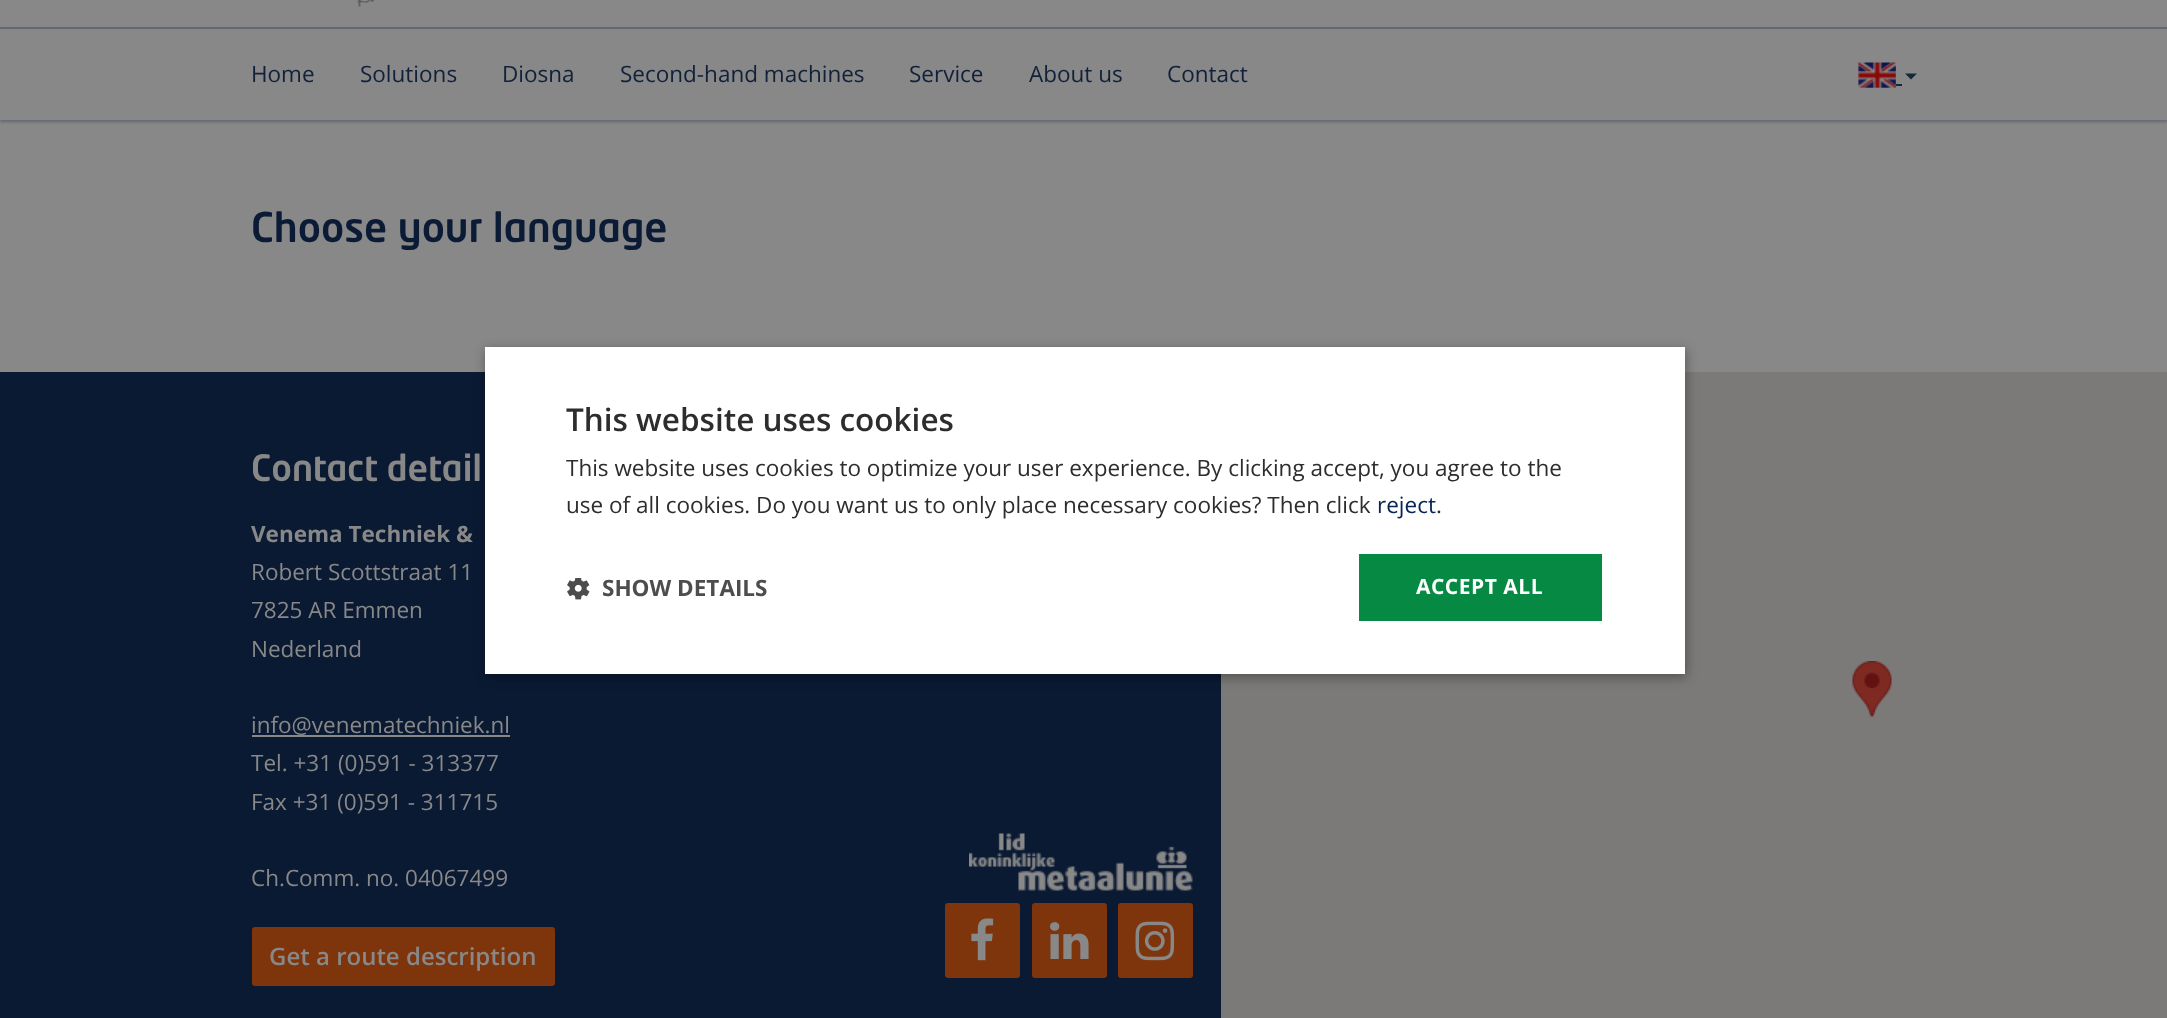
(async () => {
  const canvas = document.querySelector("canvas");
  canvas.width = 2167;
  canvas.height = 1018;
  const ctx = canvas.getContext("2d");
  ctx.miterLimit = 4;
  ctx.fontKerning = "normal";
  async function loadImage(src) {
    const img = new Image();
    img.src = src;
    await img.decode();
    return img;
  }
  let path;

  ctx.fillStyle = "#888888";
  ctx.fillRect(0, 0, 2167, 1018);
  ctx.drawImage(await loadImage("img/1.png"), 357, 0, 18, 7);
  ctx.save();
  path = new Path2D("M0 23H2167V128H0ZM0 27H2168V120H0Z");
  ctx.clip(path, "evenodd");
  ctx.fillStyle = "#63676f";
  ctx.filter = "blur(1.5px)";
  ctx.beginPath();
  ctx.rect(0, 29, 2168, 93);
  ctx.fill();
  ctx.filter = "none";
  ctx.restore();
  ctx.fillStyle = "#63676f";
  ctx.fillRect(0, 27, 2167, 2);
  ctx.drawImage(await loadImage("img/2.png"), 1858, 62, 38, 26);
  ctx.fillStyle = "#132937";
  path = new Path2D("M1905 73.5H1917L1911 79.5Z");
  ctx.fill(path);
  for (const [x, y, w, h, color] of [
    [1896, 84, 6, 2, "#132937"],
    [0, 372, 1221, 646, "#0b1a33"],
    [252, 735, 258, 2, "#888888"],
  ]) {
    ctx.fillStyle = color;
    ctx.fillRect(x, y, w, h);
  }
  ctx.fillStyle = "#7f350c";
  ctx.beginPath();
  ctx.roundRect(252, 927, 303, 59, 3);
  ctx.fill();
  ctx.drawImage(await loadImage("img/3.png"), 969, 833, 224, 58);
  ctx.beginPath();
  ctx.roundRect(945, 903, 75, 75, 3);
  ctx.fill();
  ctx.drawImage(await loadImage("img/4.png"), 971, 918, 23, 43);
  ctx.beginPath();
  ctx.roundRect(1032, 903, 75, 75, 3);
  ctx.fill();
  ctx.drawImage(await loadImage("img/5.png"), 1050, 922, 39, 37);
  ctx.beginPath();
  ctx.roundRect(1118, 903, 75, 75, 3);
  ctx.fill();
  ctx.drawImage(await loadImage("img/6.png"), 1135, 921, 40, 40);
  ctx.fillStyle = "#7b7a78";
  ctx.fillRect(1221, 372, 946, 646);
  ctx.drawImage(await loadImage("img/7.png"), 1852, 661, 40, 56);
  ctx.fillStyle = "rgba(0, 0, 0, 0.35)";
  ctx.filter = "blur(6px)";
  ctx.beginPath();
  ctx.rect(486, 350, 1200, 327);
  ctx.fill();
  ctx.filter = "none";
  ctx.fillStyle = "#ffffff";
  ctx.fillRect(485, 347, 1200, 327);
  ctx.drawImage(await loadImage("img/8.png"), 567, 578, 23, 22);
  ctx.fillStyle = "#058943";
  ctx.fillRect(1359, 554, 243, 67);
  ctx.font = "22.5px Open Sans";
  ctx.fillStyle = "#12213a";
  for (const [text, x, y] of [
    ["Home", 251, 82],
    ["Solutions", 360, 82],
    ["Diosna", 502, 82],
    ["Second-hand machines", 620, 82],
    ["Service", 909, 82],
    ["About us", 1029, 82],
    ["Contact", 1167, 82],
  ]) {
    ctx.fillText(text, x, y);
  }
  ctx.font = "500 40.5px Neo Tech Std";
  ctx.fillStyle = "#0b1b35";
  ctx.fillText("Choose your language", 251, 242);
  ctx.font = "500 36px Neo Tech Std";
  ctx.fillStyle = "#888888";
  ctx.fillText("Contact detail", 251, 481);
  ctx.font = "bold 22.5px Open Sans";
  ctx.fillText("Venema Techniek &", 251, 542);
  ctx.font = "22.5px Open Sans";
  for (const [text, x, y] of [
    ["Robert Scottstraat 11", 251, 580],
    ["7825 AR Emmen", 251, 618],
    ["Nederland", 251, 657],
    ["info@venematechniek.nl", 251, 733],
    ["Tel. +31 (0)591 - 313377", 251, 771],
    ["Fax +31 (0)591 - 311715", 251, 810],
    ["Ch.Comm. no. 04067499", 251, 886],
  ]) {
    ctx.fillText(text, x, y);
  }
  ctx.font = "600 24px Open Sans";
  ctx.fillText("Get a route description", 269, 965);
  ctx.font = "600 31.5px Open Sans";
  ctx.fillStyle = "#2d2d2d";
  ctx.fillText("This website uses cookies", 566, 431);
  ctx.font = "22.5px Open Sans";
  ctx.fillText("This website uses cookies to optimize your user experience. By clicking accept, you agree to the", 566, 476);
  ctx.fillText("use of all cookies. Do you want us to only place necessary cookies? Then click", 566, 513);
  ctx.fillStyle = "#052355";
  ctx.fillText("reject", 1377, 513);
  ctx.fillStyle = "#2d2d2d";
  ctx.fillText(".", 1436, 513);
  ctx.font = "bold 22.5px Open Sans";
  ctx.fillStyle = "#4d4d4d";
  ctx.fillText("SHOW DETAILS", 602, 596);
  ctx.letterSpacing = "0.5px";
  ctx.font = "bold 21px Open Sans";
  ctx.fillStyle = "#ffffff";
  ctx.fillText("ACCEPT ALL", 1416, 594);
})();
